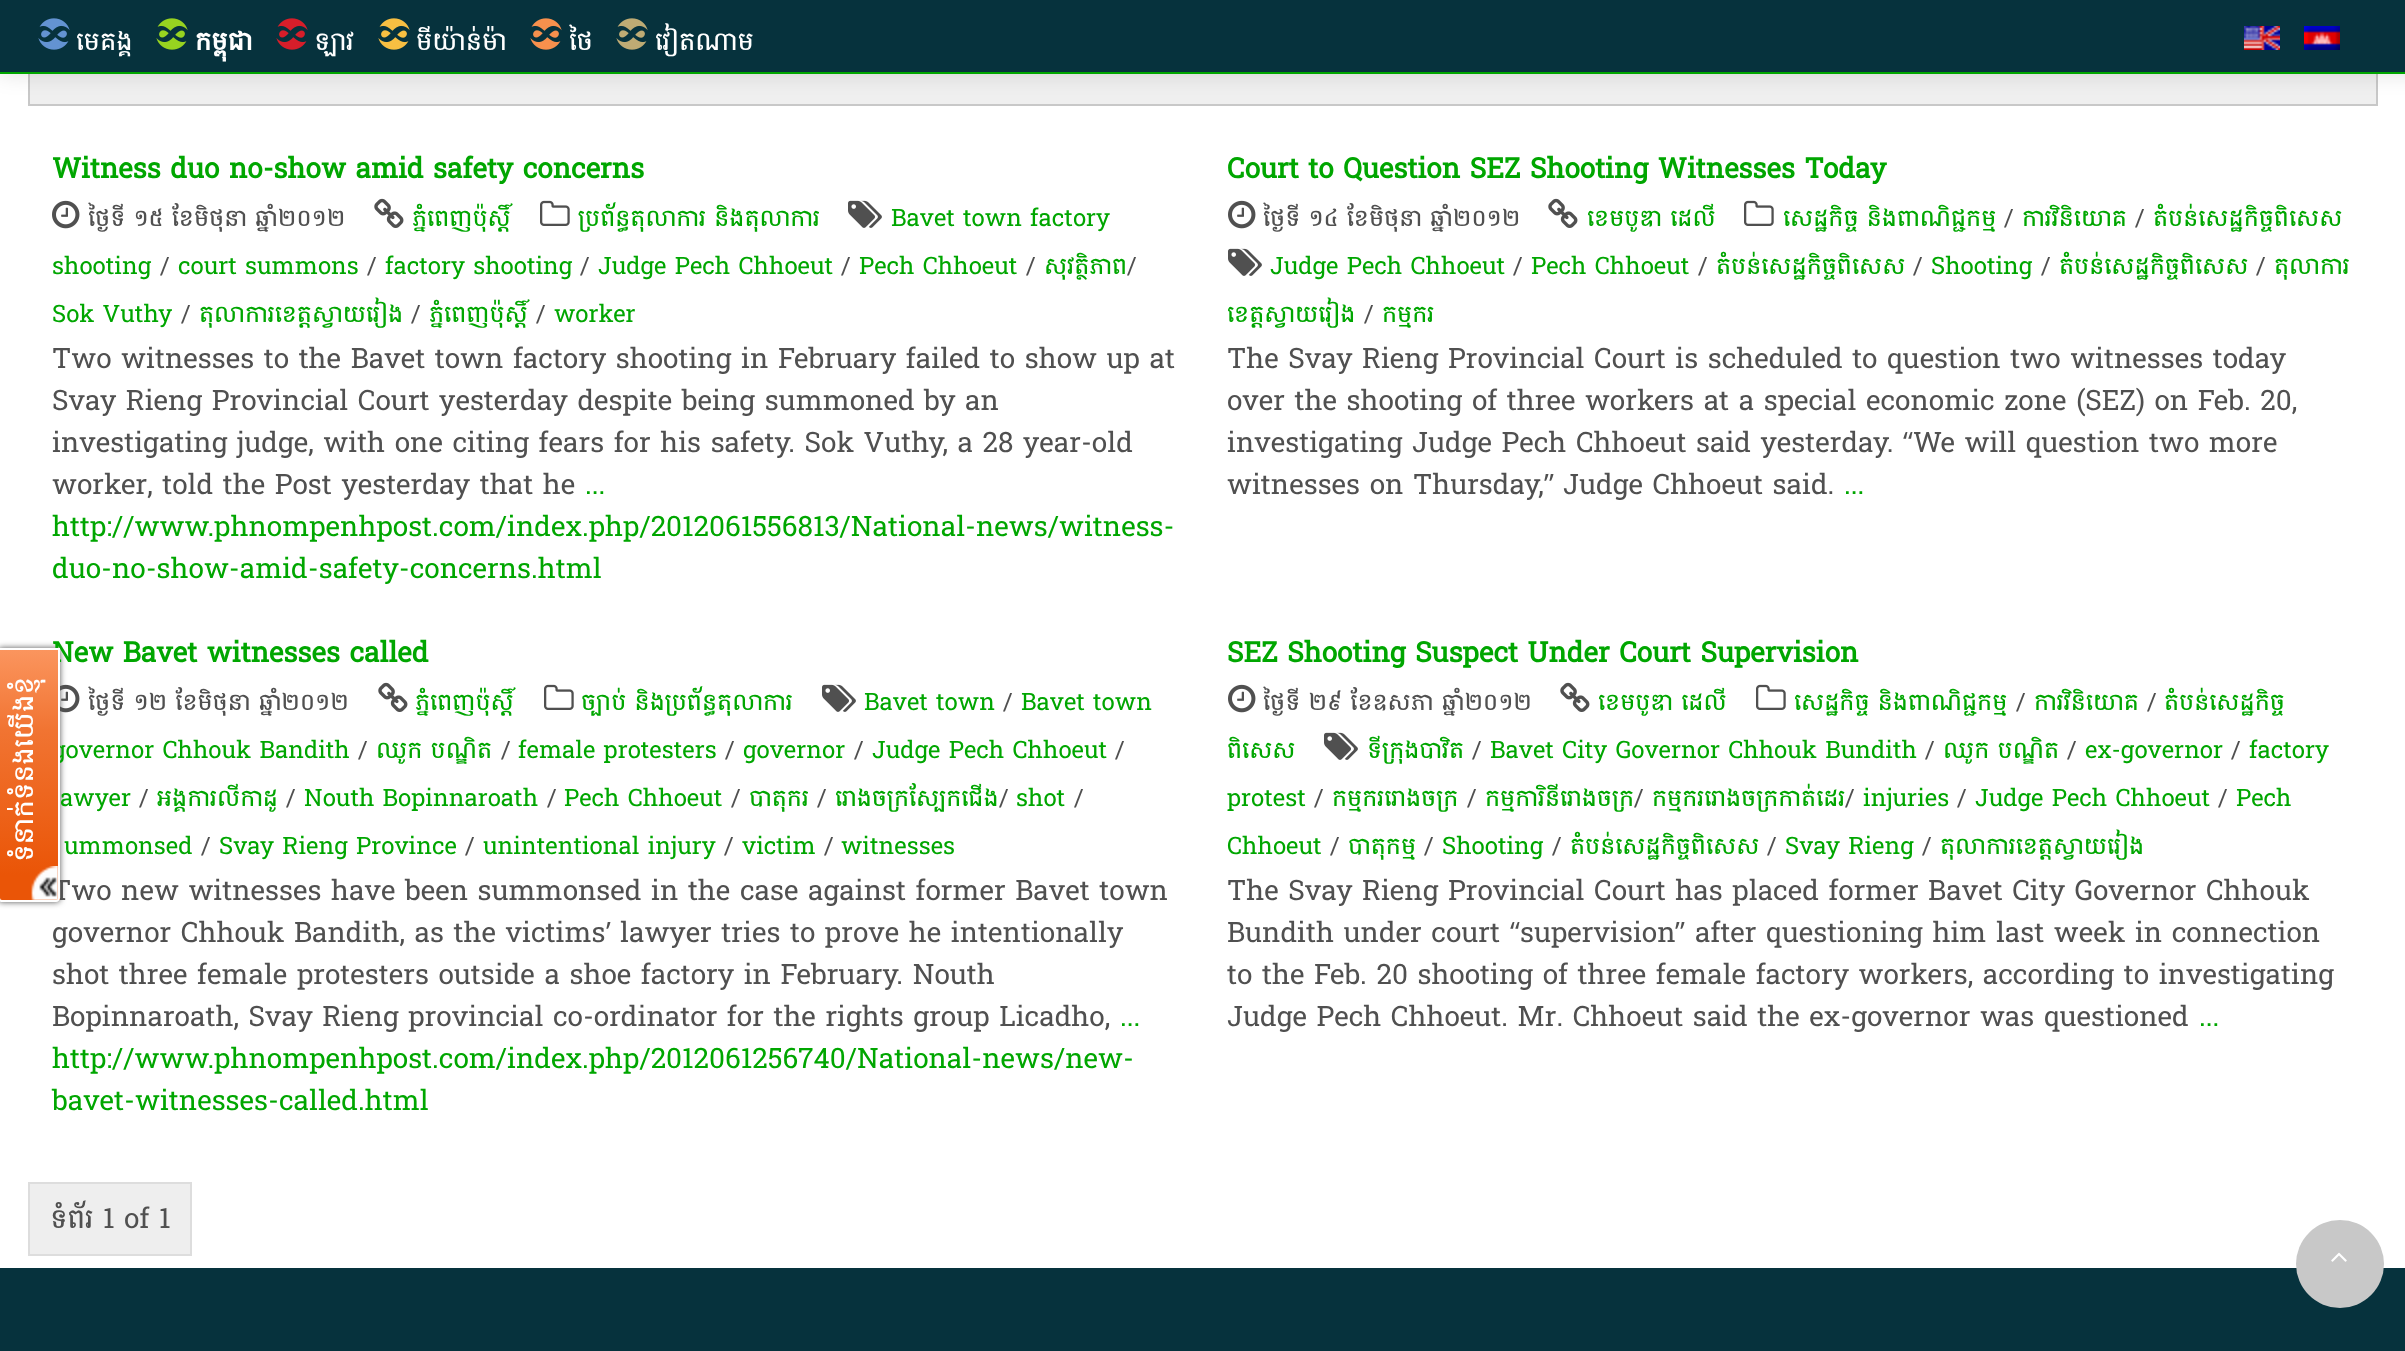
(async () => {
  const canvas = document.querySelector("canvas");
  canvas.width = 2405;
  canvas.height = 1351;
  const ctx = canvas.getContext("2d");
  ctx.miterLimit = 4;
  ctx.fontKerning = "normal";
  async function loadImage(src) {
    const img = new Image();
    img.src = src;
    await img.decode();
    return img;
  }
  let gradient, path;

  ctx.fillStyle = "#ffffff";
  ctx.fillRect(0, 0, 2405, 1351);
  ctx.fillStyle = "#efefef";
  ctx.fillRect(30, 74, 2346, 30);
  ctx.strokeStyle = "#c8c8c8";
  ctx.lineWidth = 2;
  ctx.strokeRect(29, -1, 2348, 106);
  ctx.fillStyle = "rgba(0, 0, 0, 0.1)";
  ctx.filter = "blur(10px)";
  ctx.beginPath();
  ctx.rect(0, 2, 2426, 74);
  ctx.fill();
  ctx.filter = "none";
  ctx.fillStyle = "#06323d";
  ctx.fillRect(0, 0, 2405, 72);
  ctx.fillStyle = "#00a600";
  ctx.fillRect(0, 72, 2405, 2);
  ctx.drawImage(await loadImage("img/1.png"), 38, 18, 32, 32);
  ctx.drawImage(await loadImage("img/2.png"), 156, 18, 32, 32);
  ctx.drawImage(await loadImage("img/3.png"), 276, 18, 32, 32);
  ctx.drawImage(await loadImage("img/5.png"), 530, 18, 32, 32);
  ctx.drawImage(await loadImage("img/6.png"), 616, 18, 32, 32);
  ctx.drawImage(await loadImage("img/7.png"), 2244, 26, 36, 24);
  ctx.drawImage(await loadImage("img/8.png"), 2304, 26, 36, 24);
  ctx.drawImage(await loadImage("img/14.png"), 60, 684, 20, 29);
  ctx.fillStyle = "#555555";
  ctx.filter = "blur(3px)";
  ctx.beginPath();
  ctx.roundRect(-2, 648, 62, 254, 4);
  ctx.fill();
  ctx.filter = "none";
  ctx.drawImage(await loadImage("img/10.png"), 52, 200, 28, 29);
  ctx.drawImage(await loadImage("img/11.png"), 374, 198, 30, 30);
  ctx.drawImage(await loadImage("img/12.png"), 540, 200, 30, 26);
  ctx.drawImage(await loadImage("img/13.png"), 848, 200, 34, 28);
  ctx.drawImage(await loadImage("img/10.png"), 1228, 200, 28, 29);
  ctx.drawImage(await loadImage("img/11.png"), 1548, 198, 30, 30);
  ctx.drawImage(await loadImage("img/12.png"), 1744, 200, 30, 26);
  ctx.drawImage(await loadImage("img/13.png"), 1228, 248, 34, 28);
  ctx.drawImage(await loadImage("img/11.png"), 378, 682, 30, 30);
  ctx.drawImage(await loadImage("img/12.png"), 544, 684, 30, 26);
  ctx.drawImage(await loadImage("img/13.png"), 822, 684, 34, 28);
  ctx.drawImage(await loadImage("img/10.png"), 1228, 684, 28, 29);
  ctx.drawImage(await loadImage("img/12.png"), 1756, 684, 30, 26);
  ctx.drawImage(await loadImage("img/11.png"), 1560, 682, 30, 30);
  ctx.drawImage(await loadImage("img/13.png"), 1324, 732, 34, 28);
  ctx.fillStyle = "#eeeeee";
  ctx.beginPath();
  ctx.rect(29, 1183, 162, 72);
  ctx.fill();
  ctx.strokeStyle = "#dddddd";
  ctx.stroke();
  ctx.fillStyle = "#06323d";
  ctx.fillRect(0, 1268, 2405, 83);
  ctx.fillStyle = "#c8c8c8";
  ctx.beginPath();
  ctx.arc(2340, 1264, 44, 0, Math.PI * 2);
  ctx.fill();
  ctx.drawImage(await loadImage("img/15.png"), 2331, 1252, 16, 10);
  ctx.font = "26px Suwannaphum";
  ctx.fillStyle = "#ffffff";
  ctx.fillText("មេគង្គ", 76, 50);
  ctx.font = "bold 26px Suwannaphum";
  ctx.fillText("កម្ពុជា", 195, 50);
  ctx.font = "26px Suwannaphum";
  ctx.fillText("ឡាវ", 314, 50);
  ctx.fillText("មីយ៉ាន់ម៉ា", 416, 50);
  ctx.drawImage(await loadImage("img/4.png"), 378, 18, 32, 32);
  ctx.fillText("ថៃ", 569, 50);
  ctx.fillText("វៀតណាម", 655, 50);
  ctx.font = "bold 28px Suwannaphum";
  ctx.fillStyle = "#00a600";
  ctx.fillText("Witness duo no-show amid safety concerns", 52, 178);
  ctx.font = "24px Suwannaphum";
  ctx.fillStyle = "#505050";
  ctx.fillText("ថ្ងៃទី ១៥ ខែមិថុនា ឆ្នាំ២០១២", 88, 226);
  ctx.fillStyle = "#00a600";
  for (const [text, x, y] of [
    ["ភ្នំពេញប៉ុស្តិ៍", 412, 226],
    ["ប្រព័ន្ធតុលាការ និងតុលាការ", 578, 226],
    ["Bavet town factory", 891, 226],
    ["shooting", 52, 274],
  ]) {
    ctx.fillText(text, x, y);
  }
  ctx.fillStyle = "#505050";
  ctx.fillText("/", 160, 274);
  ctx.fillStyle = "#00a600";
  ctx.fillText("court summons", 178, 274);
  ctx.fillStyle = "#505050";
  ctx.fillText("/", 367, 274);
  ctx.fillStyle = "#00a600";
  ctx.fillText("factory shooting", 385, 274);
  ctx.fillStyle = "#505050";
  ctx.fillText("/", 580, 274);
  ctx.fillStyle = "#00a600";
  ctx.fillText("Judge Pech Chhoeut", 598, 274);
  ctx.fillStyle = "#505050";
  ctx.fillText("/", 841, 274);
  ctx.fillStyle = "#00a600";
  ctx.fillText("Pech Chhoeut", 859, 274);
  ctx.fillStyle = "#505050";
  ctx.fillText("/", 1026, 274);
  ctx.fillStyle = "#00a600";
  ctx.fillText("សុវត្ថិភាព", 1044, 274);
  ctx.fillStyle = "#505050";
  ctx.fillText("/", 1127, 274);
  ctx.fillStyle = "#00a600";
  ctx.fillText("Sok Vuthy", 52, 322);
  ctx.fillStyle = "#505050";
  ctx.fillText("/", 181, 322);
  ctx.fillStyle = "#00a600";
  ctx.fillText("តុលាការខេត្តស្វាយរៀង", 199, 322);
  ctx.fillStyle = "#505050";
  ctx.fillText("/", 411, 322);
  ctx.fillStyle = "#00a600";
  ctx.fillText("ភ្នំពេញប៉ុស្តិ៍", 429, 322);
  ctx.fillStyle = "#505050";
  ctx.fillText("/", 536, 322);
  ctx.fillStyle = "#00a600";
  ctx.fillText("worker", 554, 322);
  ctx.font = "28px Suwannaphum";
  ctx.fillStyle = "#505050";
  for (const [text, x, y] of [
    ["Two witnesses to the Bavet town factory shooting in February failed to show up at", 52, 368],
    ["Svay Rieng Provincial Court yesterday despite being summoned by an", 52, 410],
    ["investigating judge, with one citing fears for his safety. Sok Vuthy, a 28 year-old", 52, 452],
    ["worker, told the Post yesterday that he", 52, 494],
  ]) {
    ctx.fillText(text, x, y);
  }
  ctx.fillStyle = "#00a600";
  for (const [text, x, y] of [
    ["...", 585, 494],
    ["http://www.phnompenhpost.com/index.php/2012061556813/National-news/witness-", 52, 536],
    ["duo-no-show-amid-safety-concerns.html", 52, 578],
  ]) {
    ctx.fillText(text, x, y);
  }
  ctx.font = "bold 28px Suwannaphum";
  ctx.fillText("Court to Question SEZ Shooting Witnesses Today", 1227, 178);
  ctx.font = "24px Suwannaphum";
  ctx.fillStyle = "#505050";
  ctx.fillText("ថ្ងៃទី ១៤ ខែមិថុនា ឆ្នាំ២០១២", 1263, 226);
  ctx.fillStyle = "#00a600";
  ctx.fillText("ខេមបូឌា ដេលី", 1587, 226);
  ctx.fillText("សេដ្ឋកិច្ច និងពាណិជ្ជកម្ម", 1783, 226);
  ctx.fillStyle = "#505050";
  ctx.fillText("/", 2004, 226);
  ctx.fillStyle = "#00a600";
  ctx.fillText("ការវិនិយោគ", 2022, 226);
  ctx.fillStyle = "#505050";
  ctx.fillText("/", 2135, 226);
  ctx.fillStyle = "#00a600";
  ctx.fillText("តំបន់សេដ្ឋកិច្ចពិសេស", 2153, 226);
  ctx.fillText("Judge Pech Chhoeut", 1270, 274);
  ctx.fillStyle = "#505050";
  ctx.fillText("/", 1513, 274);
  ctx.fillStyle = "#00a600";
  ctx.fillText("Pech Chhoeut", 1531, 274);
  ctx.fillStyle = "#505050";
  ctx.fillText("/", 1698, 274);
  ctx.fillStyle = "#00a600";
  ctx.fillText("តំបន់សេដ្ឋកិច្ចពិសេស", 1716, 274);
  ctx.fillStyle = "#505050";
  ctx.fillText("/", 1913, 274);
  ctx.fillStyle = "#00a600";
  ctx.fillText("Shooting", 1931, 274);
  ctx.fillStyle = "#505050";
  ctx.fillText("/", 2041, 274);
  ctx.fillStyle = "#00a600";
  ctx.fillText("តំបន់សេដ្ឋកិច្ចពិសេស", 2059, 274);
  ctx.fillStyle = "#505050";
  ctx.fillText("/", 2256, 274);
  ctx.fillStyle = "#00a600";
  ctx.fillText("តុលាការ", 2274, 274);
  ctx.fillText("ខេត្តស្វាយរៀង", 1227, 322);
  ctx.fillStyle = "#505050";
  ctx.fillText("/", 1364, 322);
  ctx.fillStyle = "#00a600";
  ctx.fillText("កម្មករ", 1382, 322);
  ctx.font = "28px Suwannaphum";
  ctx.fillStyle = "#505050";
  for (const [text, x, y] of [
    ["The Svay Rieng Provincial Court is scheduled to question two witnesses today", 1227, 368],
    ["over the shooting of three workers at a special economic zone (SEZ) on Feb. 20,", 1227, 410],
    ["investigating Judge Pech Chhoeut said yesterday.", 1227, 452],
  ]) {
    ctx.fillText(text, x, y);
  }
  ctx.font = "28px Open Sans";
  ctx.fillText("“", 1903, 452);
  ctx.font = "28px Suwannaphum";
  ctx.fillText("We will question two more", 1913, 452);
  ctx.fillText("witnesses on Thursday,", 1227, 494);
  ctx.font = "28px Open Sans";
  ctx.fillText("”", 1544, 494);
  ctx.font = "28px Suwannaphum";
  ctx.fillText("Judge Chhoeut said.", 1563, 494);
  ctx.fillStyle = "#00a600";
  ctx.fillText("...", 1844, 494);
  ctx.font = "bold 28px Suwannaphum";
  ctx.fillText("New Bavet witnesses called", 52, 662);
  ctx.font = "24px Suwannaphum";
  ctx.fillStyle = "#505050";
  ctx.fillText("ថ្ងៃទី ១២ ខែមិថុនា ឆ្នាំ២០១២", 88, 710);
  ctx.fillStyle = "#00a600";
  for (const [text, x, y] of [
    ["ភ្នំពេញប៉ុស្តិ៍", 415, 710],
    ["ច្បាប់ និងប្រព័ន្ធតុលាការ", 581, 710],
    ["Bavet town", 864, 710],
  ]) {
    ctx.fillText(text, x, y);
  }
  ctx.fillStyle = "#505050";
  ctx.fillText("/", 1003, 710);
  ctx.fillStyle = "#00a600";
  ctx.fillText("Bavet town", 1021, 710);
  ctx.fillText("governor Chhouk Bandith", 52, 758);
  ctx.fillStyle = "#505050";
  ctx.fillText("/", 358, 758);
  ctx.fillStyle = "#00a600";
  ctx.fillText("ឈូក បណ្ឌិត", 376, 758);
  ctx.fillStyle = "#505050";
  ctx.fillText("/", 501, 758);
  ctx.fillStyle = "#00a600";
  ctx.fillText("female protesters", 518, 758);
  ctx.fillStyle = "#505050";
  ctx.fillText("/", 725, 758);
  ctx.fillStyle = "#00a600";
  ctx.fillText("governor", 743, 758);
  ctx.fillStyle = "#505050";
  ctx.fillText("/", 854, 758);
  ctx.fillStyle = "#00a600";
  ctx.fillText("Judge Pech Chhoeut", 872, 758);
  ctx.fillStyle = "#505050";
  ctx.fillText("/", 1115, 758);
  ctx.fillStyle = "#00a600";
  ctx.fillText("awyer", 60, 806);
  ctx.fillStyle = "#505050";
  ctx.fillText("/", 139, 806);
  ctx.fillStyle = "#00a600";
  ctx.fillText("អង្គការលីកាដូ", 157, 806);
  ctx.fillStyle = "#505050";
  ctx.fillText("/", 286, 806);
  ctx.fillStyle = "#00a600";
  ctx.fillText("Nouth Bopinnaroath", 304, 806);
  ctx.fillStyle = "#505050";
  ctx.fillText("/", 547, 806);
  ctx.fillStyle = "#00a600";
  ctx.fillText("Pech Chhoeut", 564, 806);
  ctx.fillStyle = "#505050";
  ctx.fillText("/", 731, 806);
  ctx.fillStyle = "#00a600";
  ctx.fillText("បាតុករ", 749, 806);
  ctx.fillStyle = "#505050";
  ctx.fillText("/", 817, 806);
  ctx.fillStyle = "#00a600";
  ctx.fillText("រោងចក្រស្បែកជើង", 835, 806);
  ctx.fillStyle = "#505050";
  ctx.fillText("/", 999, 806);
  ctx.fillStyle = "#00a600";
  ctx.fillText("shot", 1016, 806);
  ctx.fillStyle = "#505050";
  ctx.fillText("/", 1074, 806);
  ctx.fillStyle = "#00a600";
  ctx.fillText("ummonsed", 64, 854);
  ctx.fillStyle = "#505050";
  ctx.fillText("/", 201, 854);
  ctx.fillStyle = "#00a600";
  ctx.fillText("Svay Rieng Province", 219, 854);
  ctx.fillStyle = "#505050";
  ctx.fillText("/", 465, 854);
  ctx.fillStyle = "#00a600";
  ctx.fillText("unintentional injury", 483, 854);
  ctx.fillStyle = "#505050";
  ctx.fillText("/", 724, 854);
  ctx.fillStyle = "#00a600";
  ctx.fillText("victim", 742, 854);
  ctx.fillStyle = "#505050";
  ctx.fillText("/", 824, 854);
  ctx.fillStyle = "#00a600";
  ctx.fillText("witnesses", 841, 854);
  ctx.font = "28px Suwannaphum";
  ctx.fillStyle = "#505050";
  ctx.fillText("Two new witnesses have been summonsed in the case against former Bavet town", 52, 900);
  gradient = ctx.createLinearGradient(29, 650, 29, 900);
  gradient.addColorStop(0, "#feccb1");
  gradient.addColorStop(0, "#fb955e");
  gradient.addColorStop(0.32, "#f17432");
  gradient.addColorStop(0.9, "#ea5507");
  ctx.fillStyle = gradient;
  ctx.fillRect(0, 650, 60, 250);
  path = new Path2D("M-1 649H59V898C59 899.5 57.5 901 56 901H2C.5 901-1 899.5-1 898Z");
  ctx.strokeStyle = "#ffffff";
  ctx.stroke(path);
  ctx.fillStyle = "#ffffff";
  ctx.save();
  ctx.translate(33, 862);
  ctx.rotate(-90 * Math.PI / 180);
  ctx.fillText("ទំនាក់ទំនងយើងខ្ញុំ", 0, 0);
  ctx.restore();
  ctx.drawImage(await loadImage("img/9.png"), 31, 866, 27, 34);
  ctx.fillStyle = "#505050";
  ctx.fillText("governor Chhouk Bandith, as the victims", 52, 942);
  ctx.font = "28px Open Sans";
  ctx.fillText("’", 606, 942);
  ctx.font = "28px Suwannaphum";
  for (const [text, x, y] of [
    ["lawyer tries to prove he intentionally", 620, 942],
    ["shot three female protesters outside a shoe factory in February. Nouth", 52, 984],
    ["Bopinnaroath, Svay Rieng provincial co-ordinator for the rights group Licadho,", 52, 1026],
  ]) {
    ctx.fillText(text, x, y);
  }
  ctx.fillStyle = "#00a600";
  for (const [text, x, y] of [
    ["...", 1120, 1026],
    ["http://www.phnompenhpost.com/index.php/2012061256740/National-news/new-", 52, 1068],
    ["bavet-witnesses-called.html", 52, 1110],
  ]) {
    ctx.fillText(text, x, y);
  }
  ctx.font = "bold 28px Suwannaphum";
  ctx.fillText("SEZ Shooting Suspect Under Court Supervision", 1227, 662);
  ctx.font = "24px Suwannaphum";
  ctx.fillStyle = "#505050";
  ctx.fillText("ថ្ងៃទី ២៩ ខែឧសភា ឆ្នាំ២០១២", 1263, 710);
  ctx.fillStyle = "#00a600";
  ctx.fillText("សេដ្ឋកិច្ច និងពាណិជ្ជកម្ម", 1794, 710);
  ctx.fillStyle = "#505050";
  ctx.fillText("/", 2016, 710);
  ctx.fillStyle = "#00a600";
  ctx.fillText("ការវិនិយោគ", 2034, 710);
  ctx.fillStyle = "#505050";
  ctx.fillText("/", 2147, 710);
  ctx.fillStyle = "#00a600";
  for (const [text, x, y] of [
    ["តំបន់សេដ្ឋកិច្ច", 2164, 710],
    ["ពិសេស", 1227, 758],
    ["ខេមបូឌា ដេលី", 1598, 710],
    ["ទីក្រុងបាវិត", 1367, 758],
  ]) {
    ctx.fillText(text, x, y);
  }
  ctx.fillStyle = "#505050";
  ctx.fillText("/", 1472, 758);
  ctx.fillStyle = "#00a600";
  ctx.fillText("Bavet City Governor Chhouk Bundith", 1490, 758);
  ctx.fillStyle = "#505050";
  ctx.fillText("/", 1925, 758);
  ctx.fillStyle = "#00a600";
  ctx.fillText("ឈូក បណ្ឌិត", 1943, 758);
  ctx.fillStyle = "#505050";
  ctx.fillText("/", 2067, 758);
  ctx.fillStyle = "#00a600";
  ctx.fillText("ex-governor", 2085, 758);
  ctx.fillStyle = "#505050";
  ctx.fillText("/", 2231, 758);
  ctx.fillStyle = "#00a600";
  ctx.fillText("factory", 2249, 758);
  ctx.fillText("protest", 1227, 806);
  ctx.fillStyle = "#505050";
  ctx.fillText("/", 1314, 806);
  ctx.fillStyle = "#00a600";
  ctx.fillText("កម្មកររោងចក្រ", 1332, 806);
  ctx.fillStyle = "#505050";
  ctx.fillText("/", 1467, 806);
  ctx.fillStyle = "#00a600";
  ctx.fillText("កម្មការិនីរោងចក្រ", 1485, 806);
  ctx.fillStyle = "#505050";
  ctx.fillText("/", 1634, 806);
  ctx.fillStyle = "#00a600";
  ctx.fillText("កម្មកររោងចក្រកាត់ដេរ", 1652, 806);
  ctx.fillStyle = "#505050";
  ctx.fillText("/", 1845, 806);
  ctx.fillStyle = "#00a600";
  ctx.fillText("injuries", 1863, 806);
  ctx.fillStyle = "#505050";
  ctx.fillText("/", 1957, 806);
  ctx.fillStyle = "#00a600";
  ctx.fillText("Judge Pech Chhoeut", 1975, 806);
  ctx.fillStyle = "#505050";
  ctx.fillText("/", 2218, 806);
  ctx.fillStyle = "#00a600";
  ctx.fillText("Pech", 2236, 806);
  ctx.fillText("Chhoeut", 1227, 854);
  ctx.fillStyle = "#505050";
  ctx.fillText("/", 1330, 854);
  ctx.fillStyle = "#00a600";
  ctx.fillText("បាតុកម្ម", 1348, 854);
  ctx.fillStyle = "#505050";
  ctx.fillText("/", 1424, 854);
  ctx.fillStyle = "#00a600";
  ctx.fillText("Shooting", 1442, 854);
  ctx.fillStyle = "#505050";
  ctx.fillText("/", 1552, 854);
  ctx.fillStyle = "#00a600";
  ctx.fillText("តំបន់សេដ្ឋកិច្ចពិសេស", 1570, 854);
  ctx.fillStyle = "#505050";
  ctx.fillText("/", 1767, 854);
  ctx.fillStyle = "#00a600";
  ctx.fillText("Svay Rieng", 1785, 854);
  ctx.fillStyle = "#505050";
  ctx.fillText("/", 1922, 854);
  ctx.fillStyle = "#00a600";
  ctx.fillText("តុលាការខេត្តស្វាយរៀង", 1940, 854);
  ctx.font = "28px Suwannaphum";
  ctx.fillStyle = "#505050";
  ctx.fillText("The Svay Rieng Provincial Court has placed former Bavet City Governor Chhouk", 1227, 900);
  ctx.fillText("Bundith under court", 1227, 942);
  ctx.font = "28px Open Sans";
  ctx.fillText("“", 1510, 942);
  ctx.font = "28px Suwannaphum";
  ctx.fillText("supervision", 1520, 942);
  ctx.font = "28px Open Sans";
  ctx.fillText("”", 1675, 942);
  ctx.font = "28px Suwannaphum";
  for (const [text, x, y] of [
    ["after questioning him last week in connection", 1695, 942],
    ["to the Feb. 20 shooting of three female factory workers, according to investigating", 1227, 984],
    ["Judge Pech Chhoeut. Mr. Chhoeut said the ex-governor was questioned", 1227, 1026],
  ]) {
    ctx.fillText(text, x, y);
  }
  ctx.fillStyle = "#00a600";
  ctx.fillText("...", 2199, 1026);
  ctx.fillStyle = "#505050";
  ctx.fillText("ទំព័រ 1 of 1", 50, 1228);
})();
